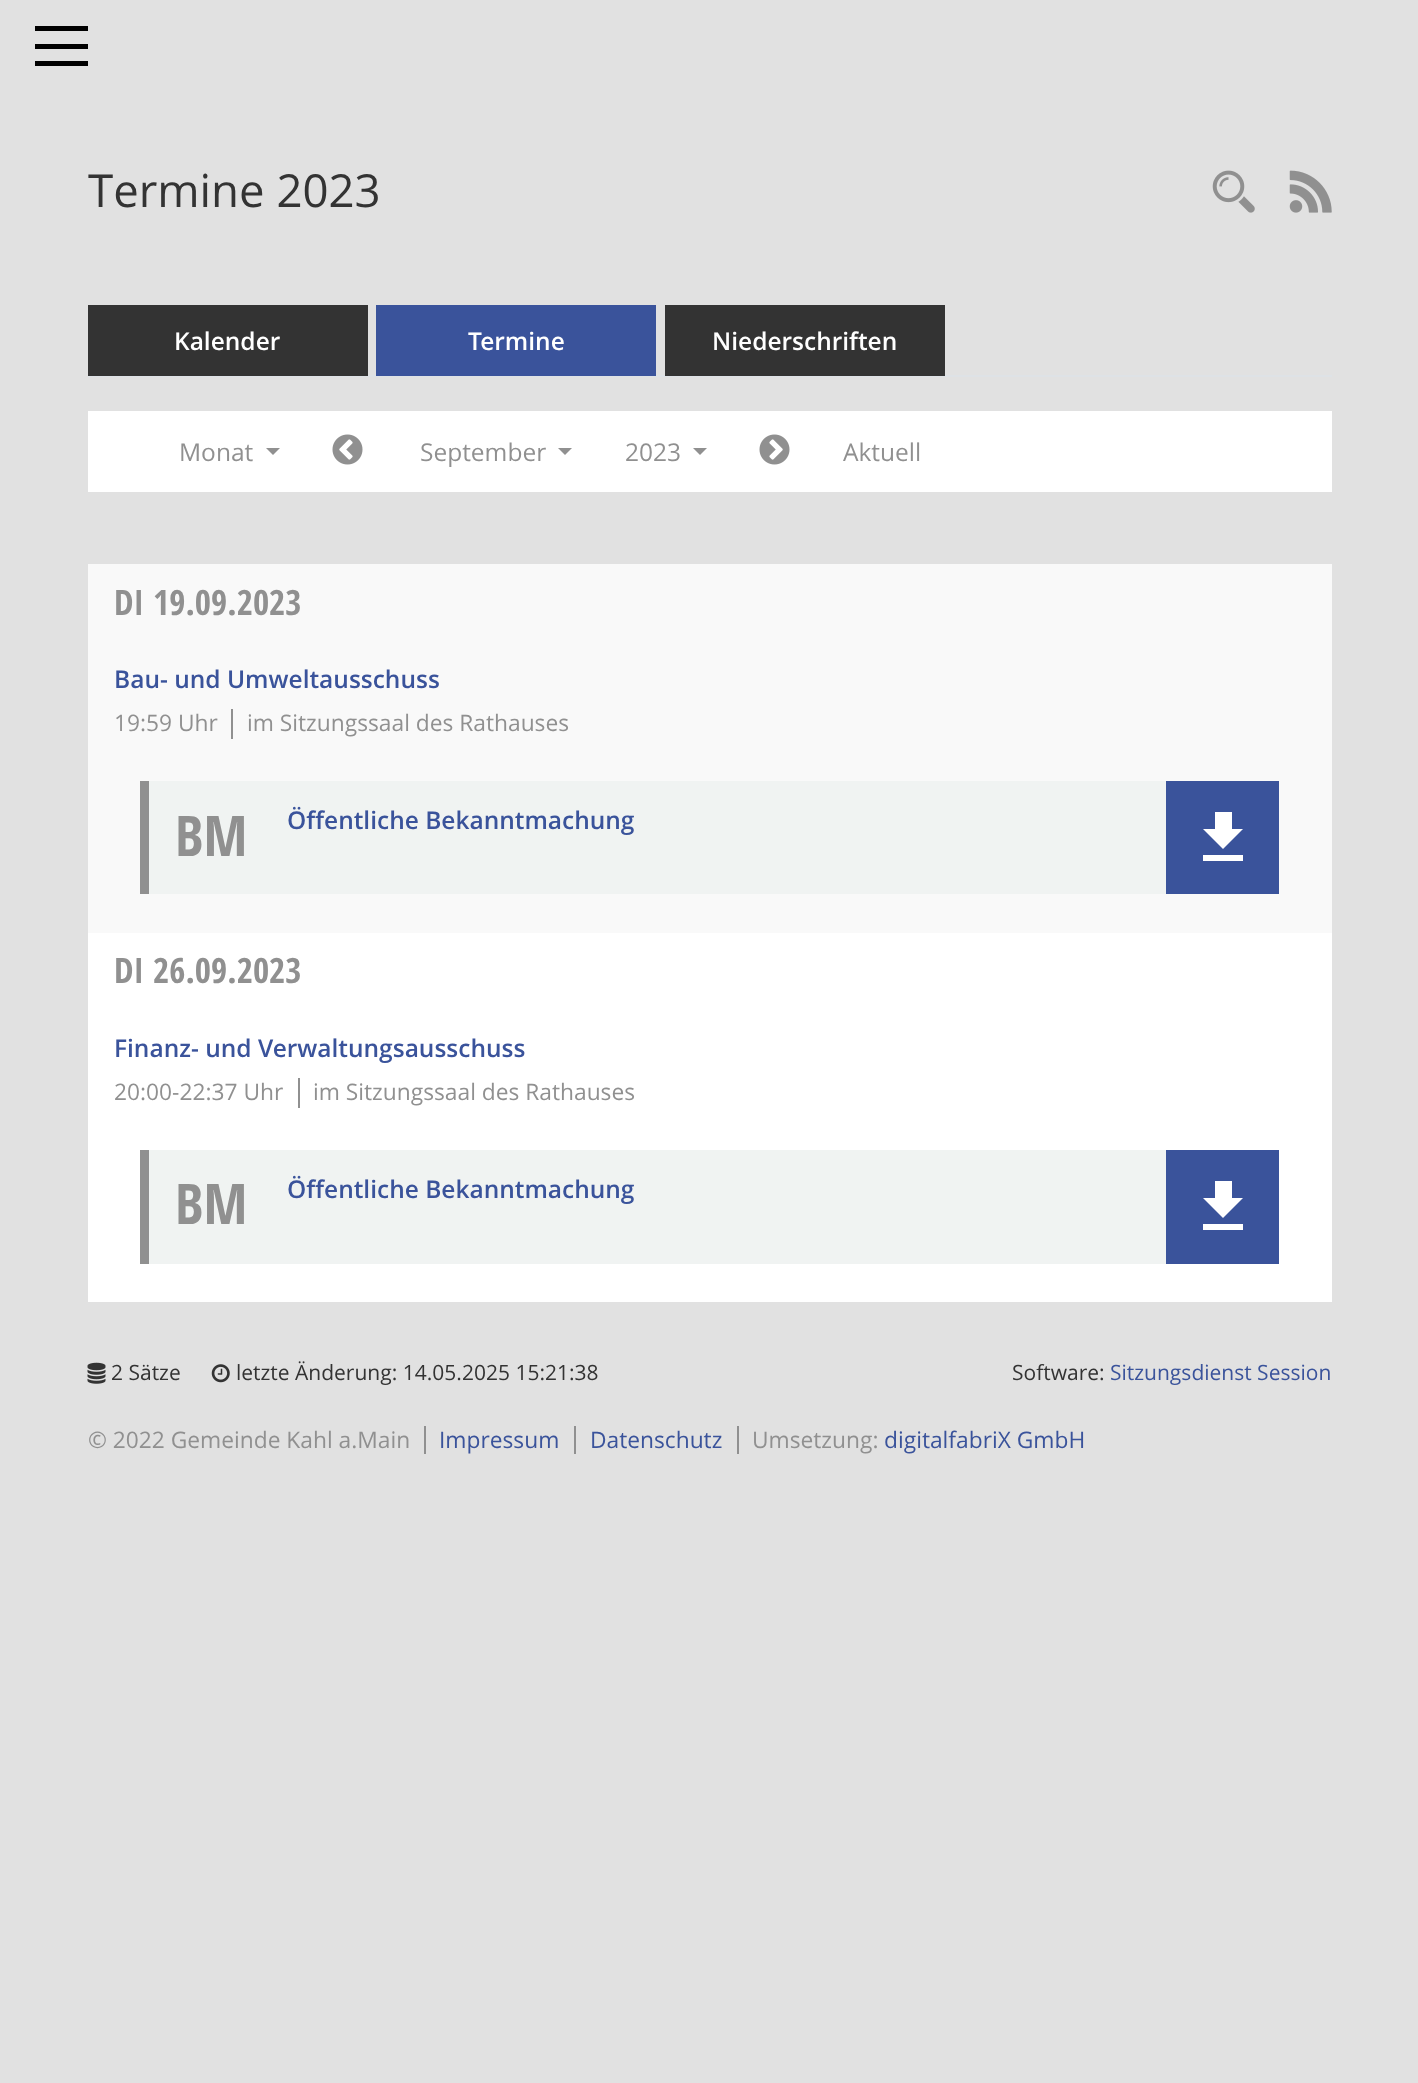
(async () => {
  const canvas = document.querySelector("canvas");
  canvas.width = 1418;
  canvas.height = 2083;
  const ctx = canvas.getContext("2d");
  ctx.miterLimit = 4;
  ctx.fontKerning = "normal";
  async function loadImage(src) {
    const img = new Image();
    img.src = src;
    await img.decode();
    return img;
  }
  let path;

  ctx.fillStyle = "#e1e1e1";
  ctx.fillRect(0, 0, 1418, 2083);
  for (const [x, y, w, h, color] of [
    [35, 26, 53, 5, "#000000"],
    [35, 44, 53, 5, "#000000"],
    [35, 61, 53, 5, "#000000"],
  ]) {
    ctx.fillStyle = color;
    ctx.fillRect(x, y, w, h);
  }
  ctx.drawImage(await loadImage("img/1.png"), 1212, 170, 43, 43);
  ctx.drawImage(await loadImage("img/2.png"), 1289, 170, 43, 43);
  for (const [x, y, w, h, color] of [
    [88, 375, 1244, 2, "#dee2e6"],
    [88, 305, 280, 71, "#333333"],
    [376, 305, 280, 71, "#3a539b"],
    [665, 305, 280, 71, "#333333"],
    [88, 411, 1244, 81, "#ffffff"],
  ]) {
    ctx.fillStyle = color;
    ctx.fillRect(x, y, w, h);
  }
  ctx.fillStyle = "#909090";
  path = new Path2D("M266 448H280L273 455Z");
  ctx.fill(path);
  ctx.drawImage(await loadImage("img/3.png"), 332, 434, 31, 31);
  path = new Path2D("M558 448H572L565 455Z");
  ctx.fill(path);
  path = new Path2D("M693 448H707L700 455Z");
  ctx.fill(path);
  ctx.drawImage(await loadImage("img/4.png"), 759, 434, 31, 31);
  for (const [x, y, w, h, color] of [
    [88, 933, 1244, 369, "#ffffff"],
    [88, 564, 1244, 369, "#f9f9f9"],
    [231, 709, 2, 30, "#909090"],
    [149, 781, 1017, 113, "#f0f3f2"],
    [140, 781, 9, 113, "#909090"],
    [1166, 781, 113, 113, "#3a539b"],
  ]) {
    ctx.fillStyle = color;
    ctx.fillRect(x, y, w, h);
  }
  ctx.fillStyle = "#ffffff";
  path = new Path2D("M1243 829H1232V812H1215V829H1203L1223 849ZM1203 855V861H1243V855Z");
  ctx.fill(path);
  for (const [x, y, w, h, color] of [
    [298, 1078, 2, 30, "#909090"],
    [149, 1150, 1017, 114, "#f0f3f2"],
    [140, 1150, 9, 114, "#909090"],
    [1166, 1150, 113, 114, "#3a539b"],
  ]) {
    ctx.fillStyle = color;
    ctx.fillRect(x, y, w, h);
  }
  ctx.fillStyle = "#ffffff";
  path = new Path2D("M1243 1198H1232V1181H1215V1198H1203L1223 1218ZM1203 1224V1230H1243V1224Z");
  ctx.fill(path);
  ctx.drawImage(await loadImage("img/5.png"), 87, 1362, 19, 22);
  ctx.drawImage(await loadImage("img/6.png"), 211, 1364, 19, 19);
  for (const [x, y, w, h, color] of [
    [424, 1426, 2, 28, "#909090"],
    [574, 1426, 2, 28, "#909090"],
    [737, 1426, 2, 28, "#909090"],
  ]) {
    ctx.fillStyle = color;
    ctx.fillRect(x, y, w, h);
  }
  ctx.font = "45.5px Open Sans";
  ctx.fillStyle = "#333333";
  ctx.fillText("Termine 2023", 88, 207);
  ctx.font = "600 24.5px Open Sans";
  ctx.fillStyle = "#ffffff";
  for (const [text, x, y] of [
    ["Kalender", 174, 350],
    ["Termine", 468, 350],
    ["Niederschriften", 712, 350],
  ]) {
    ctx.fillText(text, x, y);
  }
  ctx.font = "24.5px Open Sans";
  ctx.fillStyle = "#909090";
  for (const [text, x, y] of [
    ["Monat", 179, 461],
    ["September", 420, 461],
    ["2023", 625, 461],
    ["Aktuell", 843, 461],
  ]) {
    ctx.fillText(text, x, y);
  }
  ctx.font = "bold 35px Open Sans Condensed";
  ctx.fillText("DI", 114, 615);
  ctx.fillText("19.09.2023", 153, 615);
  ctx.font = "600 24.5px Open Sans";
  ctx.fillStyle = "#3a539b";
  ctx.fillText("Bau- und Umweltausschuss", 114, 688);
  ctx.font = "22.75px Open Sans";
  ctx.fillStyle = "#909090";
  ctx.fillText("19:59 Uhr", 114, 731);
  ctx.fillText("im Sitzungssaal des Rathauses", 247, 731);
  ctx.font = "bold 56px Open Sans Condensed";
  ctx.fillText("BM", 175, 856);
  ctx.font = "600 24.5px Open Sans";
  ctx.fillStyle = "#3a539b";
  ctx.fillText("Öffentliche Bekanntmachung", 287, 829);
  ctx.font = "bold 35px Open Sans Condensed";
  ctx.fillStyle = "#909090";
  ctx.fillText("DI", 114, 983);
  ctx.fillText("26.09.2023", 153, 983);
  ctx.font = "600 24.5px Open Sans";
  ctx.fillStyle = "#3a539b";
  ctx.fillText("Finanz- und Verwaltungsausschuss", 114, 1057);
  ctx.font = "22.75px Open Sans";
  ctx.fillStyle = "#909090";
  ctx.fillText("20:00-22:37 Uhr", 114, 1100);
  ctx.fillText("im Sitzungssaal des Rathauses", 313, 1100);
  ctx.font = "bold 56px Open Sans Condensed";
  ctx.fillText("BM", 175, 1224);
  ctx.font = "600 24.5px Open Sans";
  ctx.fillStyle = "#3a539b";
  ctx.fillText("Öffentliche Bekanntmachung", 287, 1198);
  ctx.font = "21px Open Sans";
  ctx.fillStyle = "#333333";
  for (const [text, x, y] of [
    ["2 Sätze", 111, 1380],
    ["letzte Änderung: 14.05.2025 15:21:38", 236, 1380],
    ["Software:", 1012, 1380],
  ]) {
    ctx.fillText(text, x, y);
  }
  ctx.fillStyle = "#3a539b";
  ctx.fillText("Sitzungsdienst Session", 1110, 1380);
  ctx.font = "22.75px Open Sans";
  ctx.fillStyle = "#909090";
  ctx.fillText("© 2022 Gemeinde Kahl a.Main", 88, 1448);
  ctx.fillStyle = "#3a539b";
  ctx.fillText("Impressum", 439, 1448);
  ctx.fillText("Datenschutz", 590, 1448);
  ctx.fillStyle = "#909090";
  ctx.fillText("Umsetzung:", 752, 1448);
  ctx.fillStyle = "#3a539b";
  ctx.fillText("digitalfabriX GmbH", 884, 1448);
})();
